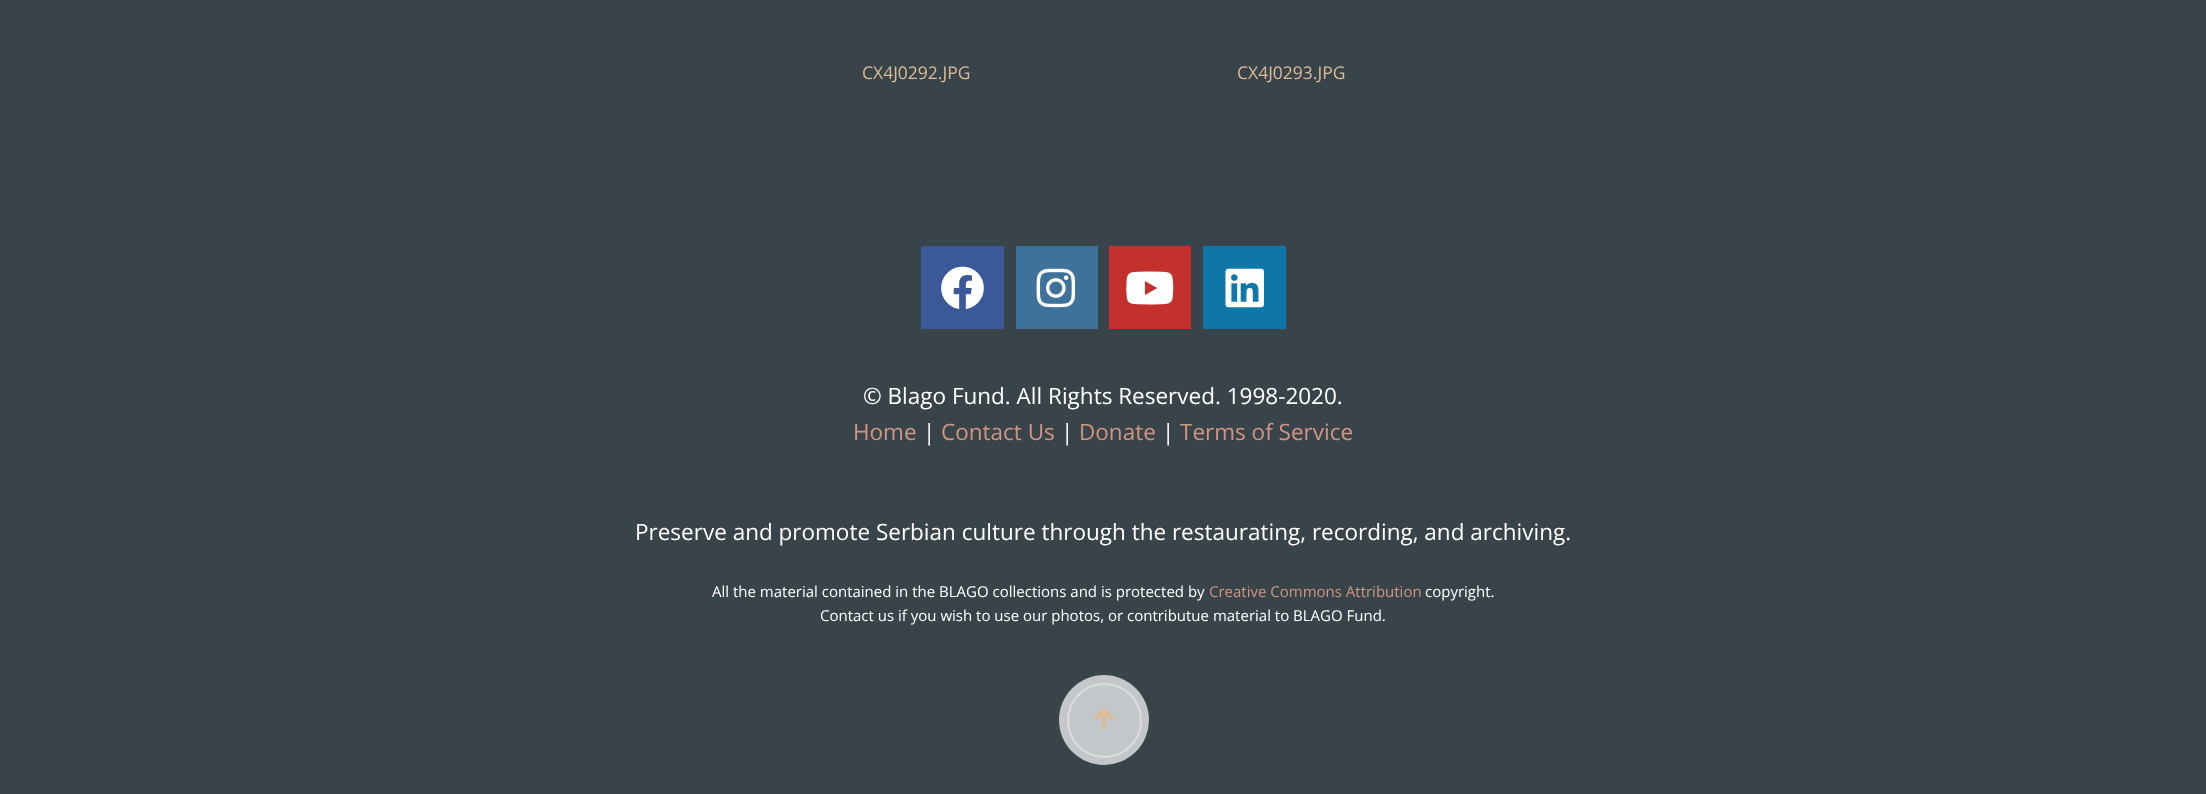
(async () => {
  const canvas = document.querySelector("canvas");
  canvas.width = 2206;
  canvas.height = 794;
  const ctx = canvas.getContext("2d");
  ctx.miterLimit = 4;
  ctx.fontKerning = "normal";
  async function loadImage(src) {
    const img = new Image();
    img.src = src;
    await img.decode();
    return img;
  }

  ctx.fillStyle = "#39444a";
  ctx.fillRect(0, 0, 2206, 794);
  ctx.fillStyle = "#3b5998";
  ctx.fillRect(921, 246, 83, 83);
  ctx.drawImage(await loadImage("img/1.png"), 941, 266, 43, 43);
  ctx.fillStyle = "#3f729b";
  ctx.fillRect(1016, 246, 82, 83);
  ctx.drawImage(await loadImage("img/2.png"), 1036, 268, 40, 40);
  ctx.fillStyle = "#c4302b";
  ctx.fillRect(1109, 246, 82, 83);
  ctx.drawImage(await loadImage("img/3.png"), 1126, 271, 48, 34);
  ctx.fillStyle = "#0e76a8";
  ctx.fillRect(1203, 246, 83, 83);
  ctx.drawImage(await loadImage("img/4.png"), 1225, 268, 39, 40);
  ctx.fillStyle = "#c4c7c9";
  ctx.beginPath();
  ctx.arc(1104, 720, 45, 0, Math.PI * 2);
  ctx.fill();
  ctx.beginPath();
  ctx.arc(1104.5, 720.5, 36.5, 0, Math.PI * 2);
  ctx.strokeStyle = "#dddddd";
  ctx.lineWidth = 2;
  ctx.stroke();
  ctx.drawImage(await loadImage("img/5.png"), 1093, 708, 22, 21);
  ctx.font = "17.5px Open Sans";
  ctx.fillStyle = "#ddbc95";
  ctx.fillText("CX4J0292.JPG", 862, 79);
  ctx.fillText("CX4J0293.JPG", 1237, 79);
  ctx.font = "22.5px Open Sans";
  ctx.fillStyle = "#ffffff";
  ctx.fillText("© Blago Fund. All Rights Reserved. 1998-2020.", 863, 404);
  ctx.fillStyle = "#d09683";
  ctx.fillText("Home", 853, 440);
  ctx.fillStyle = "#ffffff";
  ctx.fillText("|", 923, 440);
  ctx.fillStyle = "#d09683";
  ctx.fillText("Contact Us", 941, 440);
  ctx.fillStyle = "#ffffff";
  ctx.fillText("|", 1061, 440);
  ctx.fillStyle = "#d09683";
  ctx.fillText("Donate", 1079, 440);
  ctx.fillStyle = "#ffffff";
  ctx.fillText("|", 1162, 440);
  ctx.fillStyle = "#d09683";
  ctx.fillText("Terms of Service", 1180, 440);
  ctx.fillStyle = "#ffffff";
  ctx.fillText("Preserve and promote Serbian culture through the restaurating, recording, and archiving.", 635, 540);
  ctx.font = "15px Open Sans";
  ctx.fillText("All the material contained in the BLAGO collections and is protected by", 712, 597);
  ctx.fillStyle = "#d09683";
  ctx.fillText("Creative Commons Attribution", 1209, 597);
  ctx.fillStyle = "#ffffff";
  ctx.fillText("copyright.", 1425, 597);
  ctx.fillText("Contact us if you wish to use our photos, or contributue material to BLAGO Fund.", 820, 621);
})();
